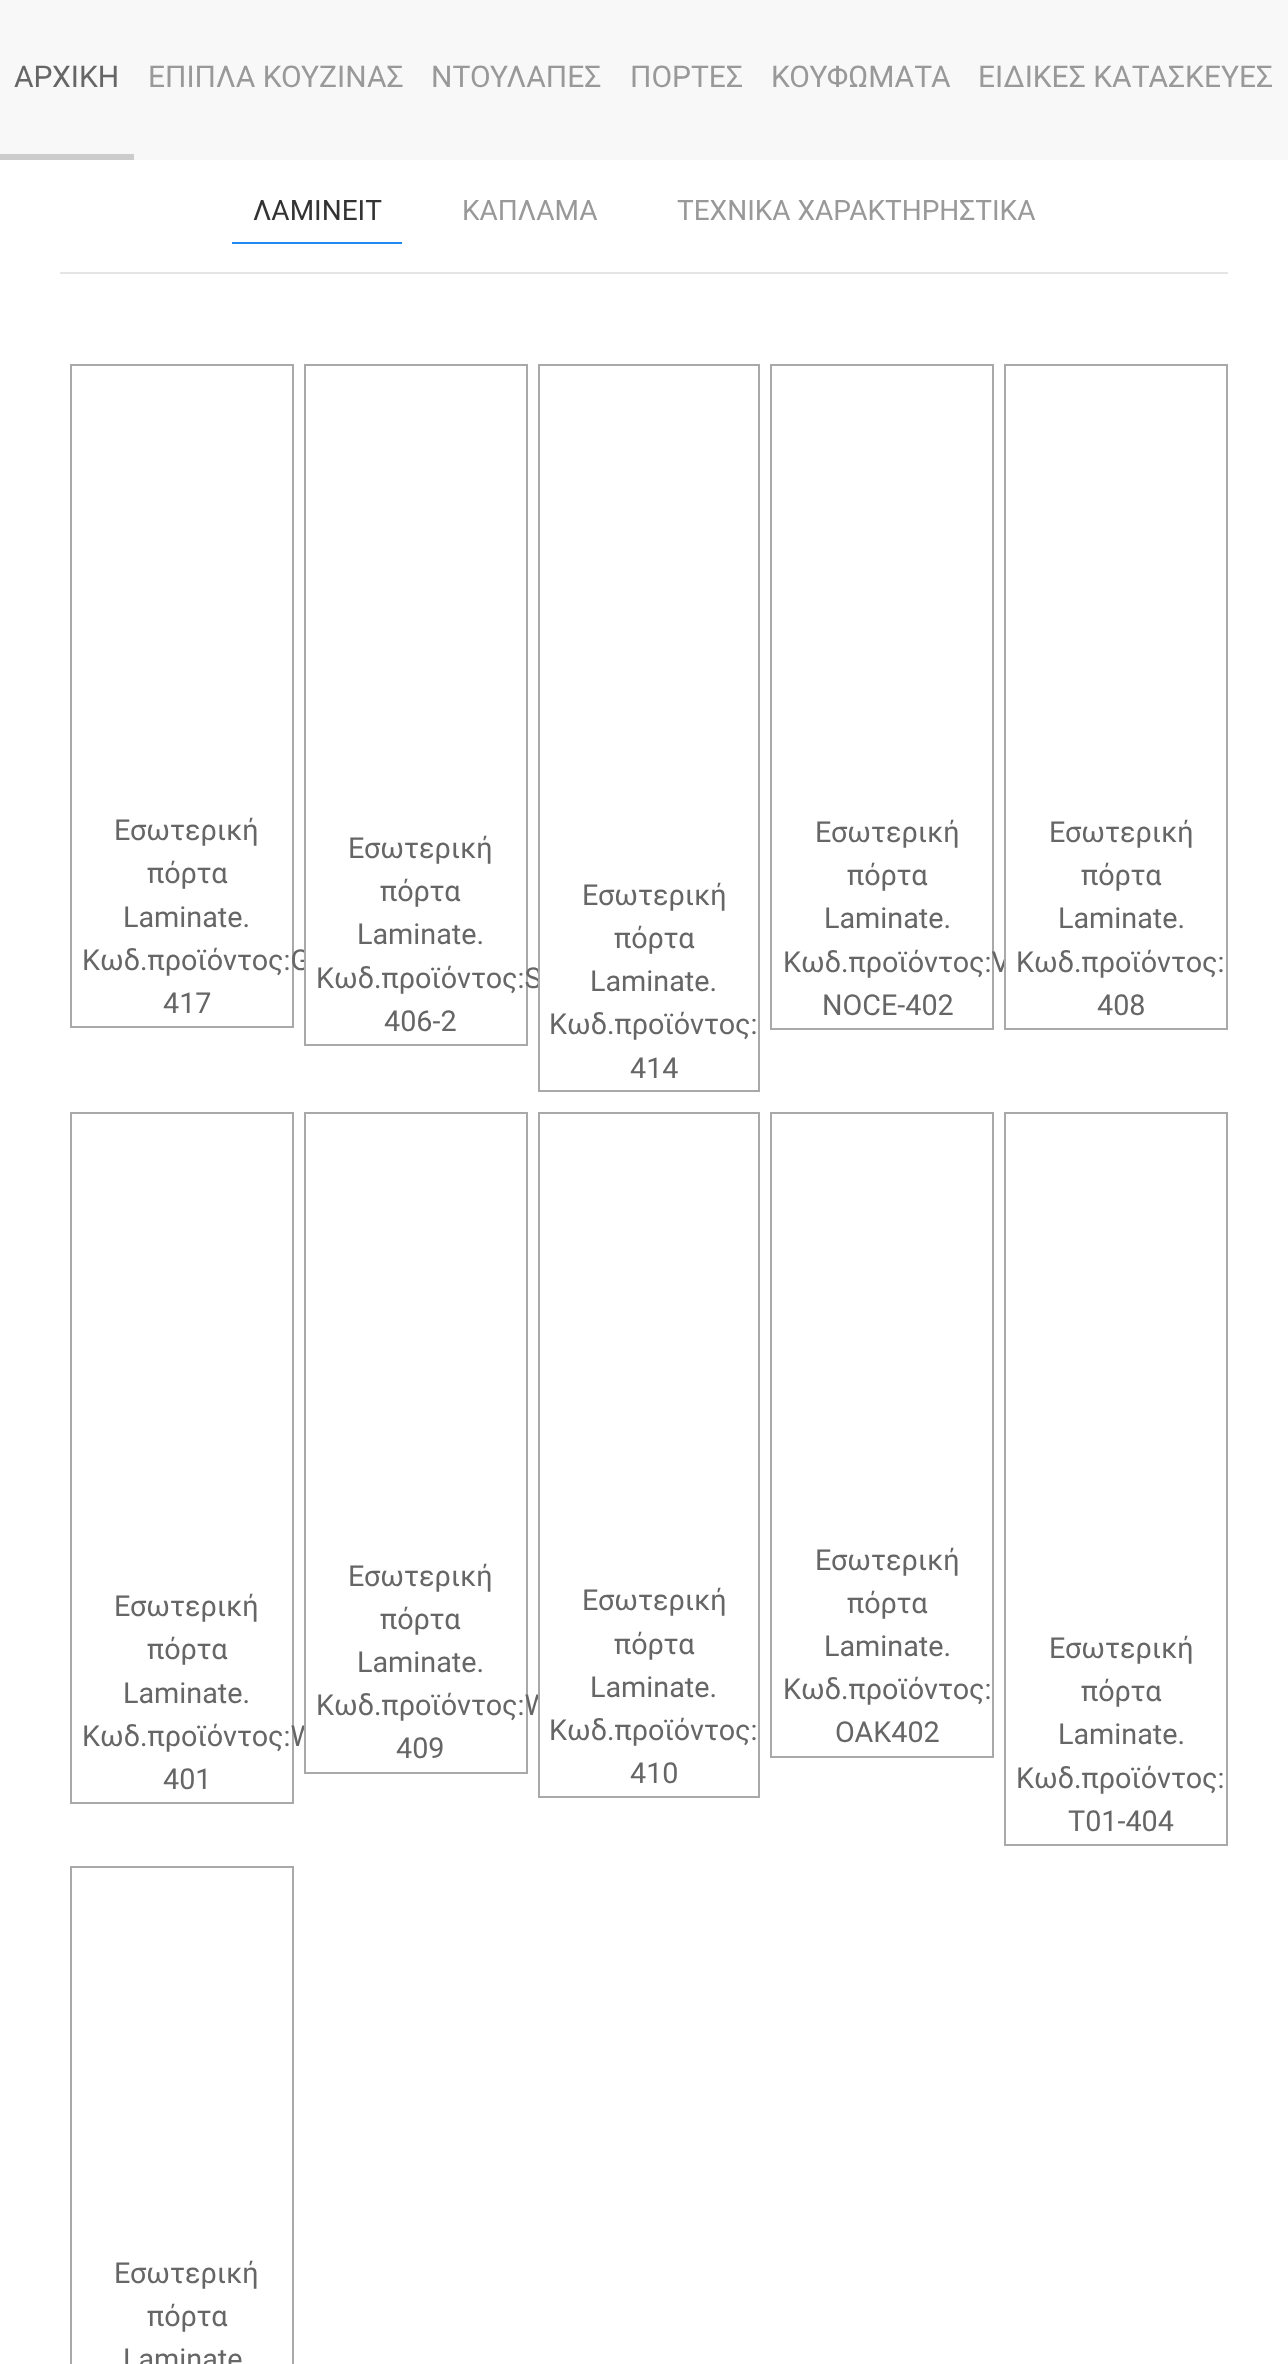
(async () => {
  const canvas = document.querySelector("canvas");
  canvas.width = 1288;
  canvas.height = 2364;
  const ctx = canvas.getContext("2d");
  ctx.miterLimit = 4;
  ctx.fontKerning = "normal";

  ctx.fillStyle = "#ffffff";
  ctx.fillRect(0, 0, 1288, 2364);
  for (const [x, y, w, h, color] of [
    [0, 0, 1288, 160, "#f8f8f8"],
    [0, 154, 134, 6, "#cccccc"],
    [232, 242, 170, 2, "#1e87f0"],
    [60, 272, 1168, 2, "#e5e5e5"],
  ]) {
    ctx.fillStyle = color;
    ctx.fillRect(x, y, w, h);
  }
  ctx.strokeStyle = "#a9a9a9";
  ctx.lineWidth = 2;
  ctx.strokeRect(71, 365, 222, 662);
  ctx.strokeRect(771, 365, 222, 664);
  ctx.strokeRect(71, 1113, 222, 690);
  ctx.strokeRect(771, 1113, 222, 644);
  ctx.strokeRect(1005, 1113, 222, 732);
  ctx.strokeRect(71, 1867, 222, 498);
  ctx.font = "30px Roboto";
  ctx.fillStyle = "#666666";
  ctx.fillText("ΑΡΧΙΚΗ", 14, 87);
  ctx.fillStyle = "#999999";
  for (const [text, x, y] of [
    ["ΕΠΙΠΛΑ ΚΟΥΖΙΝΑΣ", 148, 87],
    ["ΝΤΟΥΛΑΠΕΣ", 431, 87],
    ["ΠΟΡΤΕΣ", 630, 87],
    ["ΚΟΥΦΩΜΑΤΑ", 771, 87],
    ["ΕΙΔΙΚΕΣ ΚΑΤΑΣΚΕΥΕΣ", 978, 87],
  ]) {
    ctx.fillText(text, x, y);
  }
  ctx.font = "28px Roboto";
  ctx.fillStyle = "#333333";
  ctx.fillText("ΛΑΜΙΝΕΙΤ", 253, 220);
  ctx.fillStyle = "#999999";
  ctx.fillText("ΚΑΠΛΑΜΑ", 462, 220);
  ctx.fillText("ΤΕΧΝΙΚΑ ΧΑΡΑΚΤΗΡΗΣΤΙΚΑ", 677, 220);
  ctx.font = "28.75px Roboto";
  ctx.fillStyle = "#666666";
  for (const [text, x, y] of [
    ["Εσωτερική", 114, 840],
    ["πόρτα", 147, 883],
    ["Laminate.", 123, 927],
    ["Κωδ.προϊόντος:G", 82, 970],
    ["417", 163, 1013],
  ]) {
    ctx.fillText(text, x, y);
  }
  ctx.fillStyle = "#ffffff";
  ctx.fillRect(306, 951, 3, 19);
  ctx.strokeRect(305, 365, 222, 680);
  ctx.fillStyle = "#666666";
  for (const [text, x, y] of [
    ["Εσωτερική", 348, 858],
    ["πόρτα", 380, 901],
    ["Laminate.", 357, 944],
    ["Κωδ.προϊόντος:S", 316, 988],
    ["406-2", 384, 1031],
  ]) {
    ctx.fillText(text, x, y);
  }
  ctx.fillStyle = "#ffffff";
  ctx.fillRect(540, 971, 1, 14);
  ctx.strokeRect(539, 365, 220, 726);
  ctx.fillStyle = "#666666";
  for (const [text, x, y] of [
    ["Εσωτερική", 582, 905],
    ["πόρτα", 614, 948],
    ["Laminate.", 590, 991],
    ["Κωδ.προϊόντος:", 549, 1034],
    ["414", 630, 1078],
    ["Εσωτερική", 815, 842],
    ["πόρτα", 847, 885],
    ["Laminate.", 824, 928],
    ["Κωδ.προϊόντος:V", 783, 972],
    ["NOCE-402", 822, 1015],
  ]) {
    ctx.fillText(text, x, y);
  }
  ctx.fillStyle = "#ffffff";
  ctx.fillRect(1006, 951, 4, 11);
  ctx.strokeRect(1005, 365, 222, 664);
  ctx.fillStyle = "#666666";
  for (const [text, x, y] of [
    ["Εσωτερική", 1049, 842],
    ["πόρτα", 1081, 885],
    ["Laminate.", 1058, 928],
    ["Κωδ.προϊόντος:", 1016, 972],
    ["408", 1097, 1015],
    ["Εσωτερική", 114, 1616],
    ["πόρτα", 147, 1659],
    ["Laminate.", 123, 1703],
    ["Κωδ.προϊόντος:W", 82, 1746],
    ["401", 163, 1789],
  ]) {
    ctx.fillText(text, x, y);
  }
  ctx.fillStyle = "#ffffff";
  ctx.fillRect(306, 1725, 10, 21);
  ctx.strokeRect(305, 1113, 222, 660);
  ctx.fillStyle = "#666666";
  for (const [text, x, y] of [
    ["Εσωτερική", 348, 1586],
    ["πόρτα", 380, 1629],
    ["Laminate.", 357, 1672],
    ["Κωδ.προϊόντος:W", 316, 1715],
    ["409", 396, 1758],
  ]) {
    ctx.fillText(text, x, y);
  }
  ctx.fillStyle = "#ffffff";
  ctx.fillRect(540, 1694, 10, 21);
  ctx.strokeRect(539, 1113, 220, 684);
  ctx.fillStyle = "#666666";
  for (const [text, x, y] of [
    ["Εσωτερική", 582, 1610],
    ["πόρτα", 614, 1654],
    ["Laminate.", 590, 1697],
    ["Κωδ.προϊόντος:", 549, 1740],
    ["410", 630, 1783],
    ["Εσωτερική", 815, 1570],
    ["πόρτα", 847, 1613],
    ["Laminate.", 824, 1656],
    ["Κωδ.προϊόντος:", 783, 1699],
    ["OAK402", 835, 1742],
    ["Εσωτερική", 1049, 1658],
    ["πόρτα", 1081, 1701],
    ["Laminate.", 1058, 1744],
    ["Κωδ.προϊόντος:", 1016, 1788],
    ["Τ01-404", 1068, 1831],
    ["Εσωτερική", 114, 2283],
    ["πόρτα", 147, 2326],
    ["Laminate", 123, 2369],
  ]) {
    ctx.fillText(text, x, y);
  }
})();
